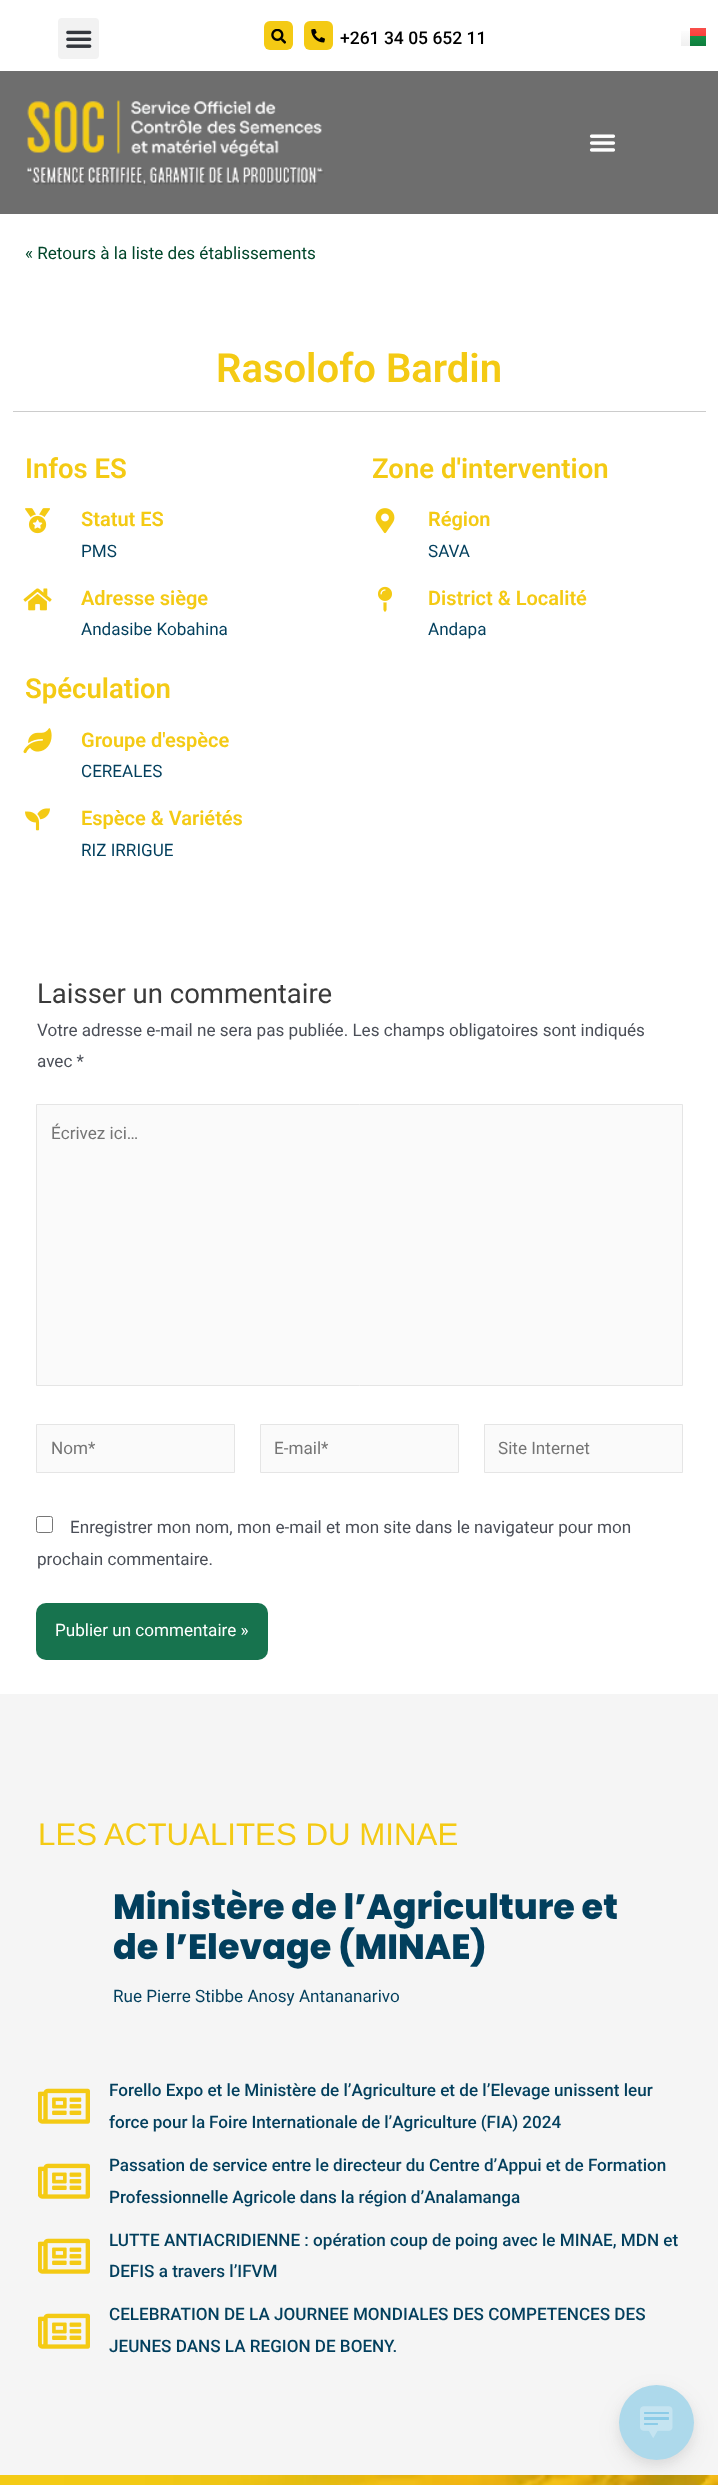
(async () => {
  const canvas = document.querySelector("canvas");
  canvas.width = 718;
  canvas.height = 2485;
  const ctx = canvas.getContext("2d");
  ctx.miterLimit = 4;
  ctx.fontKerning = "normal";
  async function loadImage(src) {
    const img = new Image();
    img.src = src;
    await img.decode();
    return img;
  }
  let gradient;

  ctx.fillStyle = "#f5f5f5";
  ctx.fillRect(0, 0, 718, 2485);
  ctx.fillStyle = "#ffffff";
  ctx.fillRect(0, 0, 718, 71);
  ctx.fillStyle = "#f2f2f2";
  ctx.beginPath();
  ctx.roundRect(58, 18, 41, 41, 4);
  ctx.fill();
  ctx.drawImage(await loadImage("img/1.png"), 66, 30, 26, 18);
  ctx.save();
  ctx.beginPath();
  ctx.roundRect(133, 21, 160, 29, 5);
  ctx.clip();
  ctx.fillStyle = "#f4ca14";
  ctx.beginPath();
  ctx.roundRect(264, 21, 29, 29, 6);
  ctx.fill();
  ctx.restore();
  ctx.drawImage(await loadImage("img/2.png"), 271, 29, 15, 15);
  ctx.fillStyle = "#f4ca14";
  ctx.beginPath();
  ctx.roundRect(304, 21, 29, 29, 6);
  ctx.fill();
  ctx.drawImage(await loadImage("img/3.png"), 311, 29, 14, 14);
  gradient = ctx.createLinearGradient(686, 28, 686, 46);
  gradient.addColorStop(0, "#ffffff");
  gradient.addColorStop(1, "#f0f0f0");
  ctx.fillStyle = gradient;
  ctx.fillRect(681, 31, 9, 15);
  gradient = ctx.createLinearGradient(694, 28, 694, 36);
  gradient.addColorStop(0, "#f84f4b");
  gradient.addColorStop(1, "#fa3f3b");
  ctx.fillStyle = gradient;
  ctx.fillRect(690, 28, 16, 8);
  gradient = ctx.createLinearGradient(694, 36, 694, 46);
  gradient.addColorStop(0, "#149047");
  gradient.addColorStop(1, "#0f7e3d");
  ctx.fillStyle = gradient;
  ctx.fillRect(690, 36, 16, 10);
  ctx.fillStyle = "#6e6e6e";
  ctx.fillRect(0, 71, 718, 143);
  ctx.drawImage(await loadImage("img/4.png"), 27, 100, 297, 86);
  ctx.drawImage(await loadImage("img/5.png"), 589, 134, 27, 18);
  ctx.fillStyle = "#ffffff";
  ctx.fillRect(0, 214, 718, 1480);
  ctx.fillStyle = "#cccccc";
  ctx.fillRect(13, 411, 693, 1);
  ctx.drawImage(await loadImage("img/6.png"), 25, 508, 25, 26);
  ctx.drawImage(await loadImage("img/7.png"), 23, 588, 29, 23);
  ctx.drawImage(await loadImage("img/8.png"), 375, 508, 20, 26);
  ctx.drawImage(await loadImage("img/9.png"), 378, 586, 14, 26);
  ctx.drawImage(await loadImage("img/10.png"), 23, 728, 29, 26);
  ctx.drawImage(await loadImage("img/11.png"), 25, 808, 25, 23);
  ctx.fillStyle = "#fafafa";
  ctx.beginPath();
  ctx.rect(36.5, 1104.5, 646, 281);
  ctx.fill();
  ctx.strokeStyle = "#e5e5e5";
  ctx.stroke();
  ctx.beginPath();
  ctx.rect(36.5, 1424.5, 198, 48);
  ctx.fill();
  ctx.stroke();
  ctx.beginPath();
  ctx.rect(260.5, 1424.5, 198, 48);
  ctx.fill();
  ctx.stroke();
  ctx.beginPath();
  ctx.rect(484.5, 1424.5, 198, 48);
  ctx.fill();
  ctx.stroke();
  ctx.beginPath();
  ctx.roundRect(36.5, 1516.5, 16, 16, 2);
  ctx.strokeStyle = "#767676";
  ctx.stroke();
  ctx.fillStyle = "#17734e";
  ctx.beginPath();
  ctx.roundRect(36, 1603, 232, 57, 10);
  ctx.fill();
  ctx.drawImage(await loadImage("img/12.png"), 38, 2088, 52, 36);
  ctx.drawImage(await loadImage("img/12.png"), 38, 2163, 52, 36);
  ctx.drawImage(await loadImage("img/12.png"), 38, 2238, 52, 36);
  ctx.drawImage(await loadImage("img/12.png"), 38, 2313, 52, 36);
  ctx.drawImage(await loadImage("img/13.png"), 0, 2475, 718, 10);
  ctx.fillStyle = "rgba(0, 0, 0, 0.06)";
  ctx.filter = "blur(12.5px)";
  ctx.beginPath();
  ctx.roundRect(619, 2393, 75, 75, 37.5);
  ctx.fill();
  ctx.filter = "none";
  ctx.fillStyle = "rgba(172, 172, 172, 0.2)";
  ctx.filter = "blur(5px)";
  ctx.beginPath();
  ctx.roundRect(619, 2390, 75, 75, 37.5);
  ctx.fill();
  ctx.filter = "none";
  ctx.fillStyle = "#add9eb";
  ctx.beginPath();
  ctx.arc(656.5, 2422.5, 37.5, 0, Math.PI * 2);
  ctx.fill();
  ctx.drawImage(await loadImage("img/14.png"), 640, 2406, 33, 32);
  ctx.font = "500 17.5px Roboto";
  ctx.fillStyle = "#000000";
  ctx.fillText("+261 34 05 652 11", 340, 44);
  ctx.font = "17.1px Roboto";
  ctx.fillStyle = "#01462a";
  ctx.fillText("« Retours à la liste des établissements", 25, 259);
  ctx.font = "600 40px Roboto";
  ctx.fillStyle = "#f4ca14";
  ctx.fillText("Rasolofo Bardin", 216, 382);
  ctx.font = "600 27.5px Roboto";
  ctx.fillText("Infos ES", 25, 478);
  ctx.font = "600 20px Roboto";
  ctx.fillText("Statut ES", 81, 526);
  ctx.font = "17.1px Roboto";
  ctx.fillStyle = "#023f5d";
  ctx.fillText("PMS", 81, 557);
  ctx.font = "600 20px Roboto";
  ctx.fillStyle = "#f4ca14";
  ctx.fillText("Adresse siège", 81, 605);
  ctx.font = "17.1px Roboto";
  ctx.fillStyle = "#023f5d";
  ctx.fillText("Andasibe Kobahina", 81, 635);
  ctx.font = "600 27.5px Roboto";
  ctx.fillStyle = "#f4ca14";
  ctx.fillText("Zone d'intervention", 372, 478);
  ctx.font = "600 20px Roboto";
  ctx.fillText("Région", 428, 526);
  ctx.font = "17.1px Roboto";
  ctx.fillStyle = "#023f5d";
  ctx.fillText("SAVA", 428, 557);
  ctx.font = "600 20px Roboto";
  ctx.fillStyle = "#f4ca14";
  ctx.fillText("District & Localité", 428, 605);
  ctx.font = "17.1px Roboto";
  ctx.fillStyle = "#023f5d";
  ctx.fillText("Andapa", 428, 635);
  ctx.font = "600 27.5px Roboto";
  ctx.fillStyle = "#f4ca14";
  ctx.fillText("Spéculation", 25, 698);
  ctx.font = "600 20px Roboto";
  ctx.fillText("Groupe d'espèce", 81, 747);
  ctx.font = "17.1px Roboto";
  ctx.fillStyle = "#023f5d";
  ctx.fillText("CEREALES", 81, 777);
  ctx.font = "600 20px Roboto";
  ctx.fillStyle = "#f4ca14";
  ctx.fillText("Espèce & Variétés", 81, 825);
  ctx.font = "17.1px Roboto";
  ctx.fillStyle = "#023f5d";
  ctx.fillText("RIZ IRRIGUE", 81, 856);
  ctx.font = "27.5px Roboto";
  ctx.fillStyle = "#3a3a3a";
  ctx.fillText("Laisser un commentaire", 37, 1003);
  ctx.font = "17.1px Roboto";
  ctx.fillStyle = "#4b4f58";
  ctx.fillText("Votre adresse e-mail ne sera pas publiée. Les champs obligatoires sont indiqués", 37, 1036);
  ctx.fillText("avec *", 37, 1067);
  ctx.fillStyle = "#757575";
  for (const [text, x, y] of [
    ["Écrivez ici…", 51, 1139],
    ["Nom*", 51, 1454],
    ["E-mail*", 274, 1454],
    ["Site Internet", 498, 1454],
  ]) {
    ctx.fillText(text, x, y);
  }
  ctx.fillStyle = "#4b4f58";
  ctx.fillText("Enregistrer mon nom, mon e-mail et mon site dans le navigateur pour mon", 70, 1533);
  ctx.fillText("prochain commentaire.", 37, 1565);
  ctx.fillStyle = "#ffffff";
  ctx.fillText("Publier un commentaire »", 55, 1636);
  ctx.font = "31.25px Liberation Sans";
  ctx.fillStyle = "#f4ca14";
  ctx.fillText("LES ACTUALITES DU MINAE", 38, 1845);
  ctx.font = "800 35px Poppins";
  ctx.fillStyle = "#023f5d";
  ctx.fillText("Ministère de l’Agriculture et", 113, 1919);
  ctx.fillText("de l’Elevage (MINAE)", 113, 1959);
  ctx.font = "17.1px Roboto";
  ctx.fillText("Rue Pierre Stibbe Anosy Antananarivo", 113, 2002);
  ctx.font = "500 17.1px Roboto";
  ctx.fillText("Forello Expo et le Ministère de l’Agriculture et de l’Elevage unissent leur", 109, 2096);
  ctx.wordSpacing = "-0.25px";
  ctx.fillText("force pour la Foire Internationale de l’Agriculture (FIA) 2024", 109, 2128);
  ctx.wordSpacing = "0px";
  ctx.fillText("Passation de service entre le directeur du Centre d’Appui et de Formation", 109, 2171);
  ctx.wordSpacing = "-0.25px";
  ctx.fillText("Professionnelle Agricole dans la région d’Analamanga", 109, 2203);
  ctx.wordSpacing = "0px";
  for (const [text, x, y] of [
    ["LUTTE ANTIACRIDIENNE : opération coup de poing avec le MINAE, MDN et", 109, 2246],
    ["DEFIS a travers l’IFVM", 109, 2277],
    ["CELEBRATION DE LA JOURNEE MONDIALES DES COMPETENCES DES", 109, 2320],
    ["JEUNES DANS LA REGION DE BOENY.", 109, 2352],
  ]) {
    ctx.fillText(text, x, y);
  }
})();
